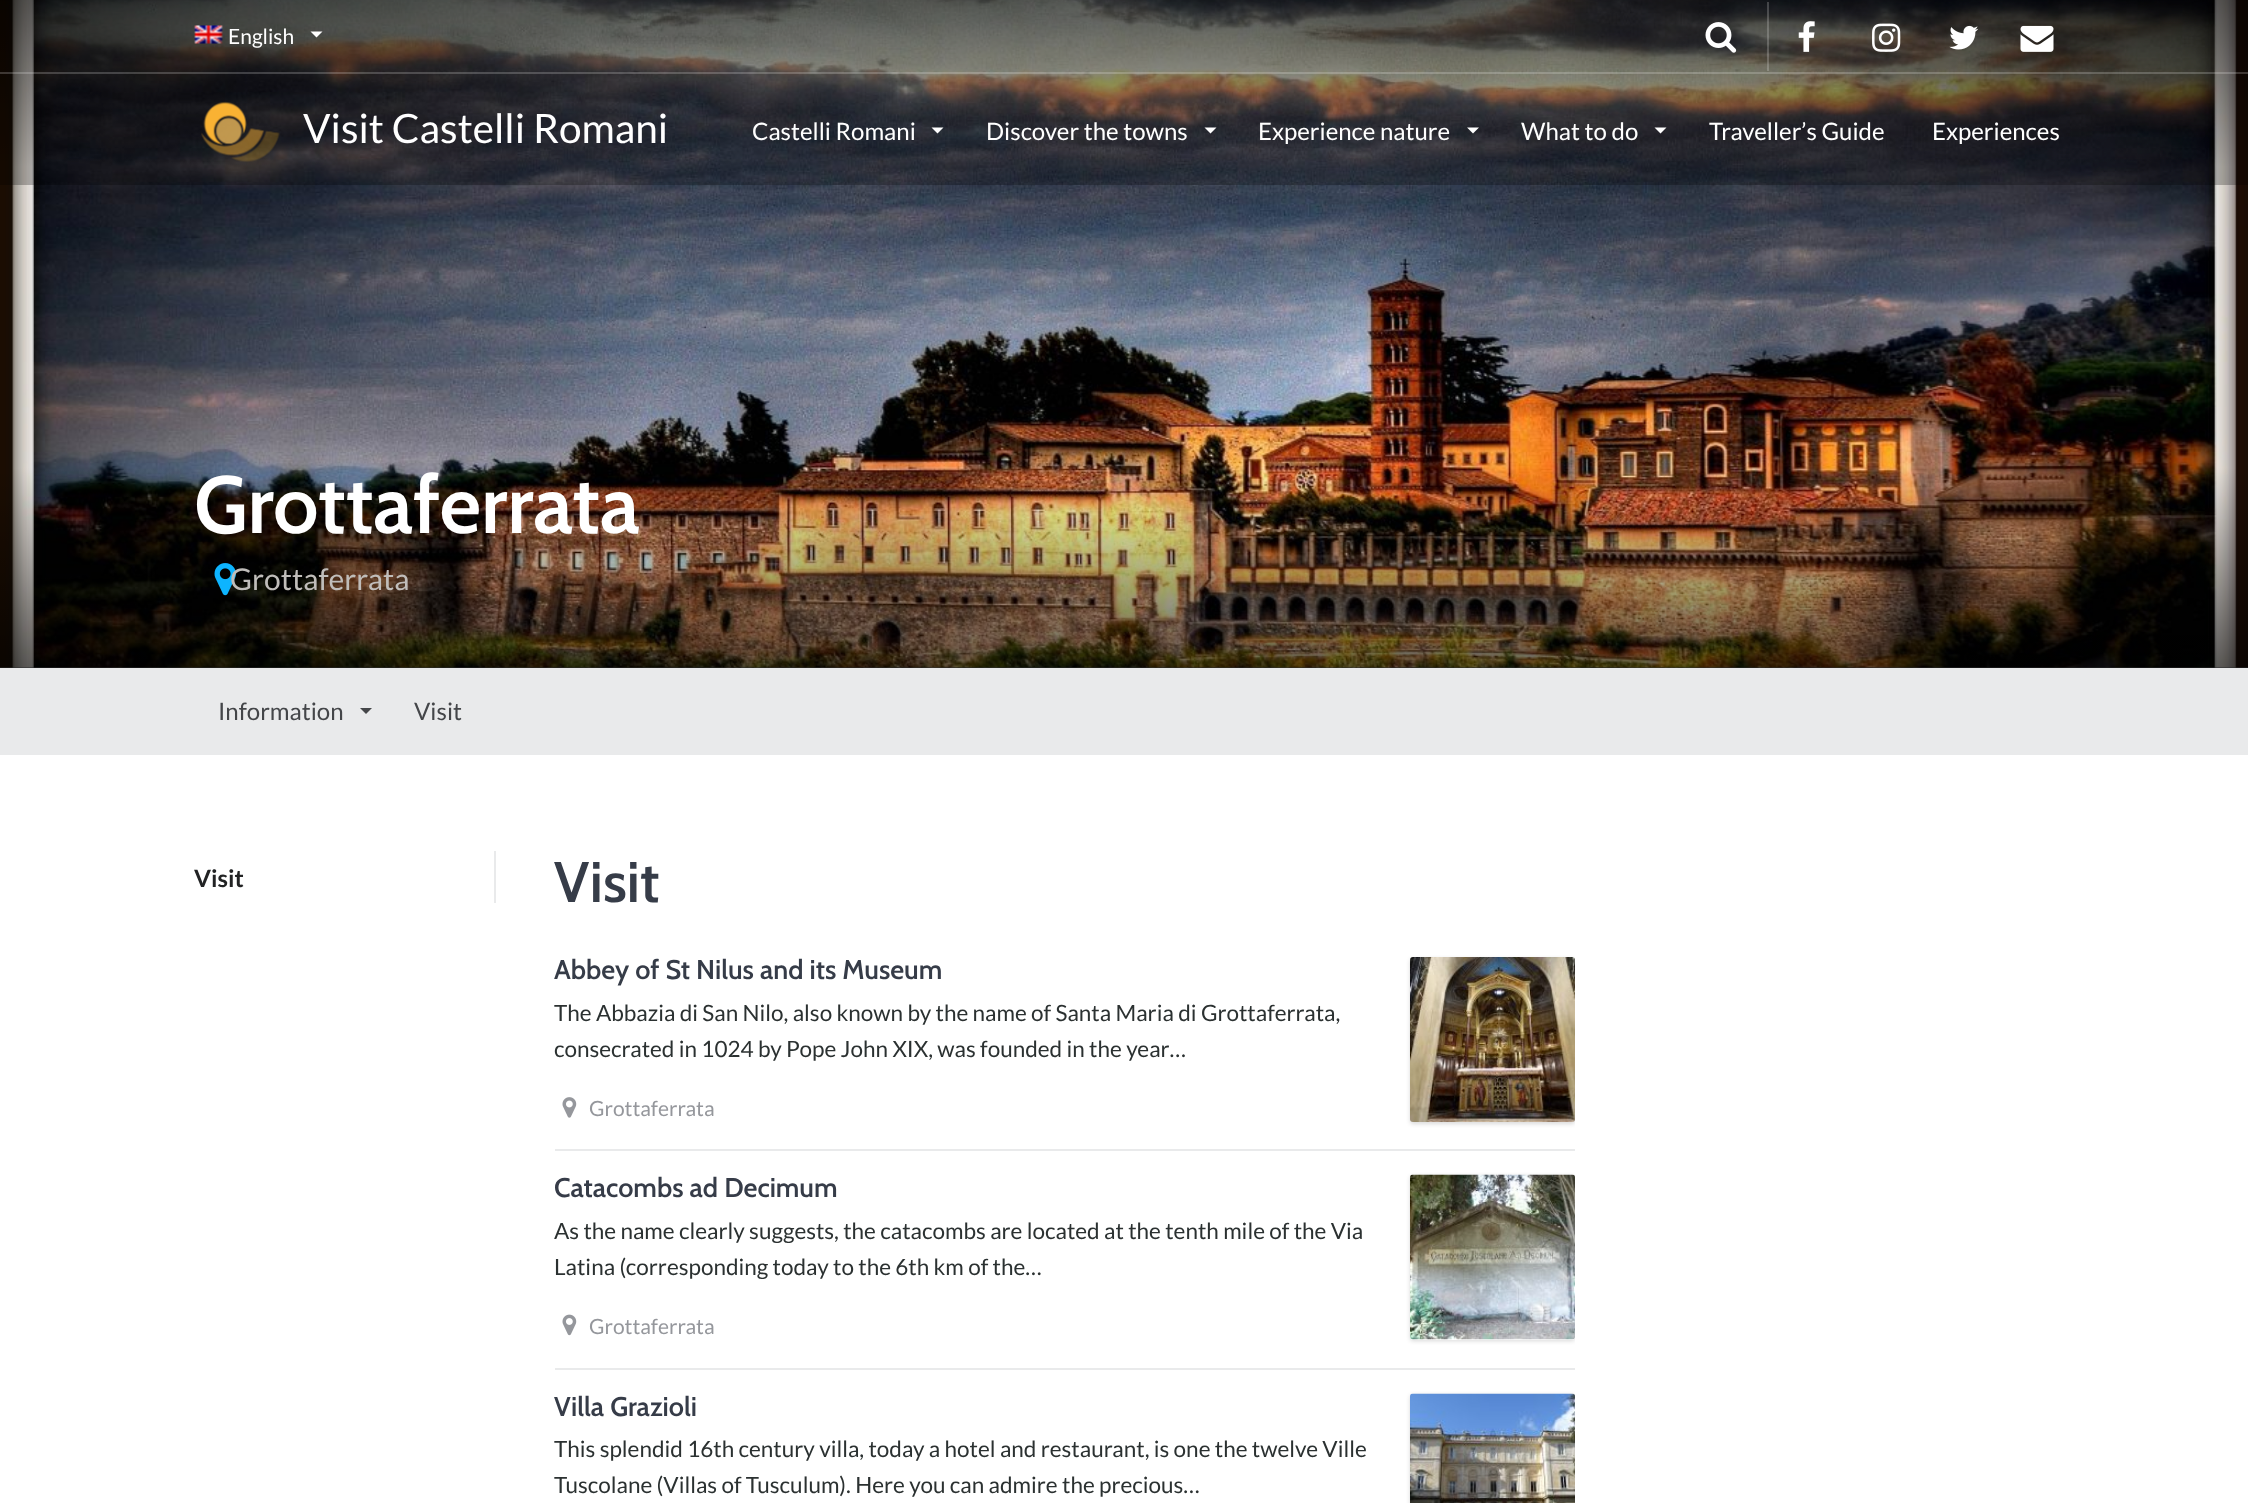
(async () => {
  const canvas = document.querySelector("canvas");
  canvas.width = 2248;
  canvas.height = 1503;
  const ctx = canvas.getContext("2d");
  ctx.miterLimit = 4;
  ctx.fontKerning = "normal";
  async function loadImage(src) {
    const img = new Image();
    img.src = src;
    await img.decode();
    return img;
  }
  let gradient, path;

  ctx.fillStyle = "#ffffff";
  ctx.fillRect(0, 0, 2248, 1503);
  ctx.fillStyle = "#6c6e73";
  ctx.fillRect(0, 667, 2248, 1);
  ctx.drawImage(await loadImage("img/8.png"), 0, 0, 2248, 668);
  gradient = ctx.createLinearGradient(1124, 0, 1124, 668);
  gradient.addColorStop(0, "rgba(0, 0, 0, 0.5)");
  gradient.addColorStop(0.25, "rgba(0, 0, 0, 0)");
  gradient.addColorStop(0.7, "rgba(0, 0, 0, 0)");
  gradient.addColorStop(1, "rgba(0, 0, 0, 0.6)");
  ctx.fillStyle = gradient;
  ctx.fillRect(0, 0, 2248, 668);
  ctx.fillStyle = "rgba(0, 0, 0, 0.26)";
  ctx.fillRect(0, 0, 2248, 185);
  ctx.fillStyle = "rgba(255, 255, 255, 0.2)";
  ctx.fillRect(0, 72, 2248, 2);
  ctx.drawImage(await loadImage("img/1.png"), 194, 25, 29, 19);
  ctx.fillStyle = "#ffffff";
  path = new Path2D("M310.5 31.5H322.5L316.5 37.5Z");
  ctx.fill(path);
  ctx.fillStyle = "rgba(255, 255, 255, 0.2)";
  ctx.fillRect(1767, 2, 2, 69);
  ctx.drawImage(await loadImage("img/2.png"), 1705, 22, 32, 31);
  ctx.drawImage(await loadImage("img/3.png"), 1798, 21, 17, 31);
  ctx.drawImage(await loadImage("img/4.png"), 1872, 23, 29, 29);
  ctx.drawImage(await loadImage("img/5.png"), 1949, 25, 30, 25);
  ctx.drawImage(await loadImage("img/6.png"), 2020, 25, 34, 27);
  ctx.drawImage(await loadImage("img/7.png"), 201, 101, 79, 61);
  ctx.fillStyle = "#ffffff";
  path = new Path2D("M931.5 127.5H943.5L937.5 133.5Z");
  ctx.fill(path);
  path = new Path2D("M1204.5 127.5H1216.5L1210.5 133.5Z");
  ctx.fill(path);
  path = new Path2D("M1467 127.5H1479L1473 133.5Z");
  ctx.fill(path);
  path = new Path2D("M1654.5 127.5H1666.5L1660.5 133.5Z");
  ctx.fill(path);
  ctx.drawImage(await loadImage("img/9.png"), 214, 563, 22, 33);
  ctx.fillStyle = "#e9eaeb";
  ctx.fillRect(0, 668, 2248, 87);
  ctx.fillStyle = "#444649";
  path = new Path2D("M360 708H372L366 714Z");
  ctx.fill(path);
  ctx.fillStyle = "#e9eaeb";
  ctx.fillRect(494, 851, 2, 52);
  ctx.fillRect(555, 1149, 1020, 2);
  ctx.drawImage(await loadImage("img/10.png"), 562, 1097, 15, 21);
  ctx.save();
  ctx.beginPath();
  ctx.rect(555, 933, 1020, 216);
  ctx.clip();
  ctx.fillStyle = "rgba(0, 0, 0, 0.15)";
  ctx.filter = "blur(2px)";
  ctx.beginPath();
  ctx.roundRect(1410, 959, 165, 165, 3);
  ctx.fill();
  ctx.filter = "none";
  ctx.restore();
  ctx.drawImage(await loadImage("img/11.png"), 1410, 957, 165, 165);
  ctx.fillRect(555, 1368, 1020, 2);
  ctx.drawImage(await loadImage("img/12.png"), 562, 1314, 15, 22);
  ctx.save();
  ctx.beginPath();
  ctx.rect(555, 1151, 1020, 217);
  ctx.clip();
  ctx.fillStyle = "rgba(0, 0, 0, 0.15)";
  ctx.filter = "blur(2px)";
  ctx.beginPath();
  ctx.roundRect(1410, 1176, 165, 165, 3);
  ctx.fill();
  ctx.filter = "none";
  ctx.restore();
  ctx.fillStyle = "#ffffff";
  ctx.beginPath();
  ctx.roundRect(1410, 1175, 165, 165, 3);
  ctx.fill();
  ctx.drawImage(await loadImage("img/13.png"), 1410, 1174, 165, 166);
  ctx.save();
  ctx.beginPath();
  ctx.rect(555, 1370, 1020, 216);
  ctx.clip();
  ctx.fillStyle = "rgba(0, 0, 0, 0.15)";
  ctx.filter = "blur(2px)";
  ctx.beginPath();
  ctx.roundRect(1410, 1395, 165, 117, 3);
  ctx.fill();
  ctx.filter = "none";
  ctx.restore();
  ctx.drawImage(await loadImage("img/14.png"), 1410, 1393, 165, 110);
  ctx.font = "21px Lato";
  ctx.fillText("English", 228, 44);
  ctx.font = "40.5px Lato";
  ctx.fillText("Visit Castelli Romani", 303, 143);
  ctx.font = "24px Lato";
  for (const [text, x, y] of [
    ["Castelli Romani", 752, 140],
    ["Discover the towns", 986, 140],
    ["Experience nature", 1258, 140],
    ["What to do", 1521, 140],
    ["Traveller’s Guide", 1709, 140],
    ["Experiences", 1932, 140],
  ]) {
    ctx.fillText(text, x, y);
  }
  ctx.font = "600 81px Cabin";
  ctx.fillText("Grottaferrata", 194, 533);
  ctx.font = "30px Lato";
  ctx.fillStyle = "#c0bdba";
  ctx.fillText("Grottaferrata", 230, 590);
  ctx.font = "24px Lato";
  ctx.fillStyle = "#444649";
  ctx.fillText("Information", 218, 720);
  ctx.fillText("Visit", 414, 720);
  ctx.font = "bold 24px Lato";
  ctx.fillStyle = "#222324";
  ctx.fillText("Visit", 194, 887);
  ctx.font = "600 57px Cabin";
  ctx.fillStyle = "#363c48";
  ctx.fillText("Visit", 554, 902);
  ctx.font = "600 27px Cabin";
  ctx.fillText("Abbey of St Nilus and its Museum", 554, 979);
  ctx.font = "22.5px Lato";
  ctx.fillStyle = "#2b3131";
  ctx.fillText("The Abbazia di San Nilo, also known by the name of Santa Maria di Grottaferrata,", 554, 1021);
  ctx.fillText("consecrated in 1024 by Pope John XIX, was founded in the year…", 554, 1057);
  ctx.font = "21px Lato";
  ctx.fillStyle = "#95979c";
  ctx.fillText("Grottaferrata", 589, 1116);
  ctx.font = "600 27px Cabin";
  ctx.fillStyle = "#363c48";
  ctx.fillText("Catacombs ad Decimum", 554, 1197);
  ctx.font = "22.5px Lato";
  ctx.fillStyle = "#2b3131";
  ctx.fillText("As the name clearly suggests, the catacombs are located at the tenth mile of the Via", 554, 1239);
  ctx.fillText("Latina (corresponding today to the 6th km of the…", 554, 1275);
  ctx.font = "21px Lato";
  ctx.fillStyle = "#95979c";
  ctx.fillText("Grottaferrata", 589, 1334);
  ctx.font = "600 27px Cabin";
  ctx.fillStyle = "#363c48";
  ctx.fillText("Villa Grazioli", 554, 1416);
  ctx.font = "22.5px Lato";
  ctx.fillStyle = "#2b3131";
  ctx.fillText("This splendid 16th century villa, today a hotel and restaurant, is one the twelve Ville", 554, 1457);
  ctx.fillText("Tuscolane (Villas of Tusculum). Here you can admire the precious…", 554, 1493);
})();
